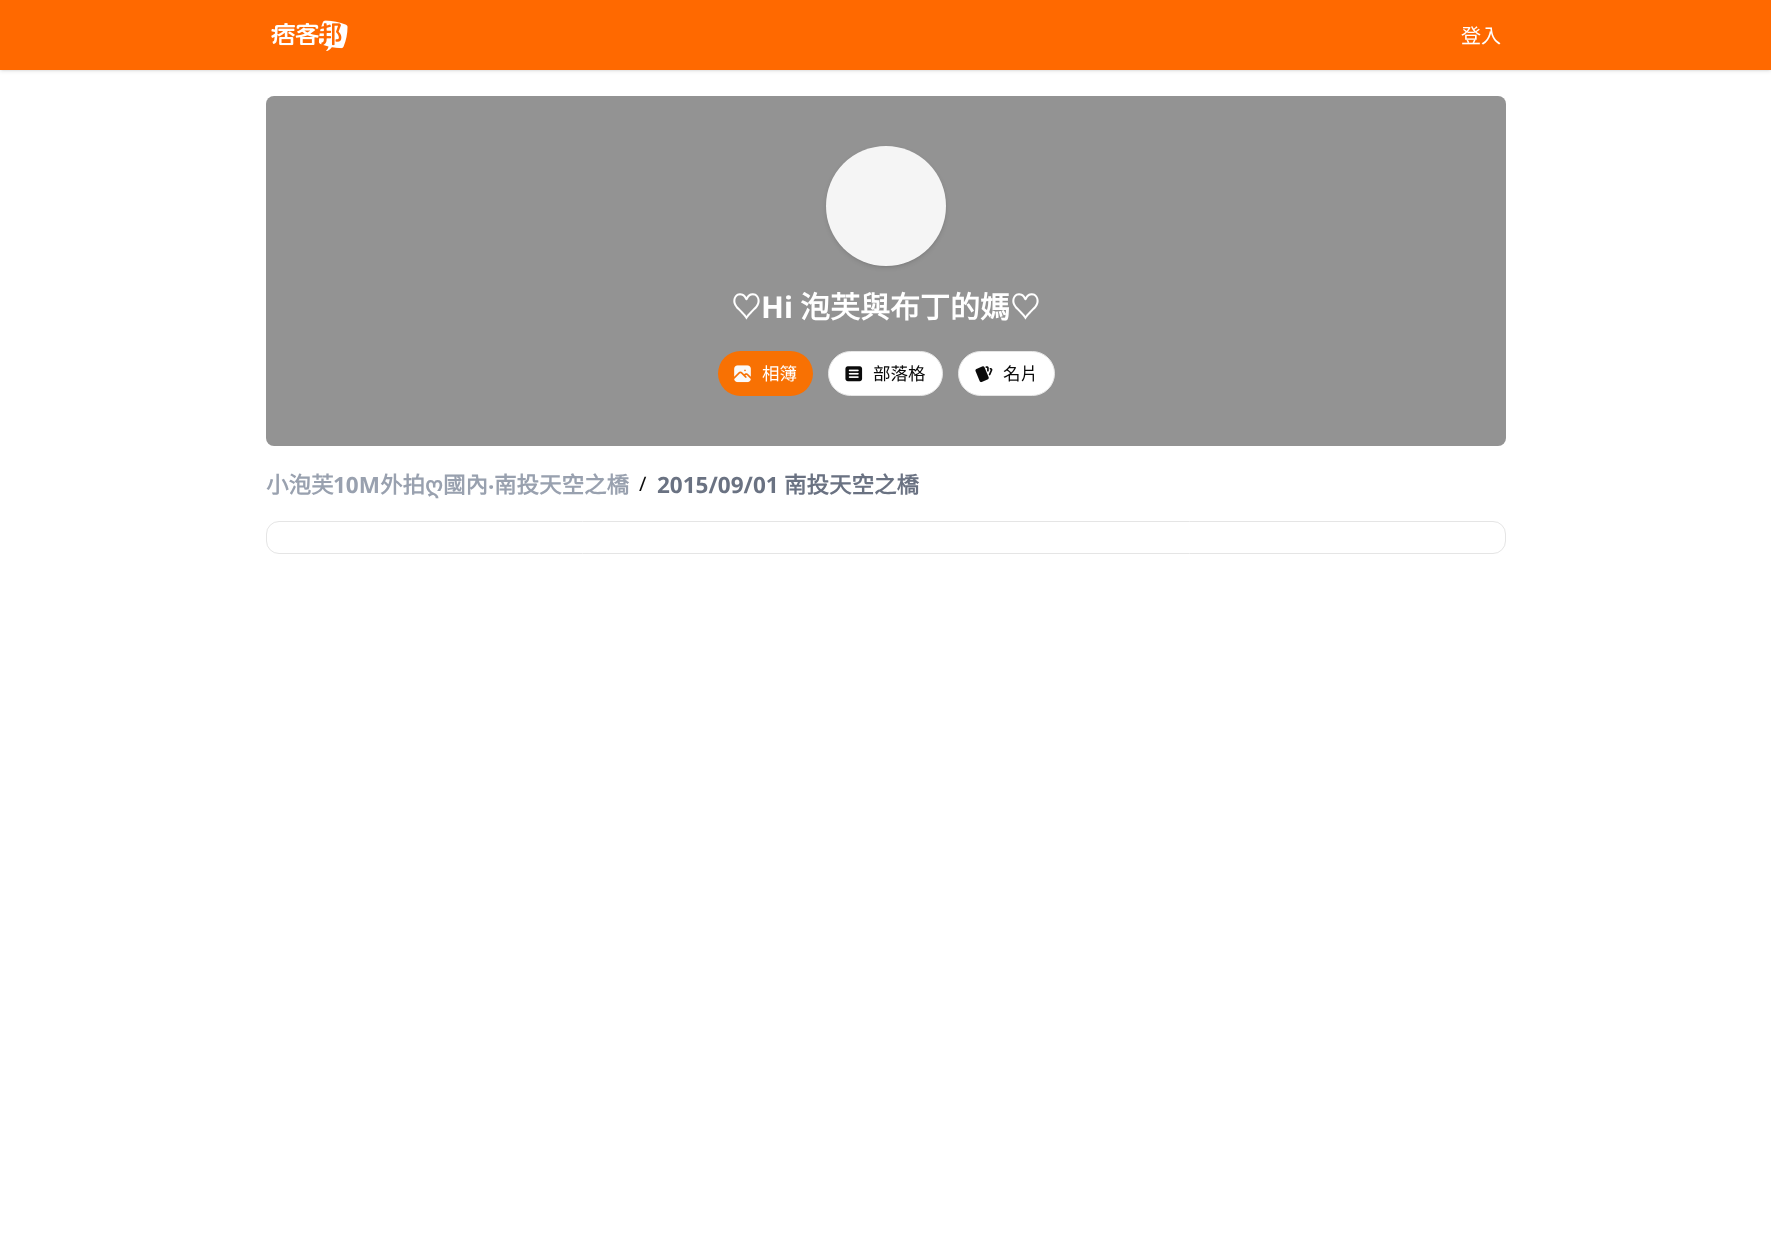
(async () => {
  const canvas = document.querySelector("canvas");
  canvas.width = 1771;
  canvas.height = 1234;
  const ctx = canvas.getContext("2d");
  ctx.miterLimit = 4;
  ctx.fontKerning = "normal";
  async function loadImage(src) {
    const img = new Image();
    img.src = src;
    await img.decode();
    return img;
  }

  ctx.fillStyle = "#ffffff";
  ctx.fillRect(0, 0, 1771, 1234);
  ctx.fillStyle = "rgba(0, 0, 0, 0.1)";
  ctx.filter = "blur(1px)";
  ctx.beginPath();
  ctx.rect(1, 3, 1769, 67);
  ctx.fill();
  ctx.filter = "none";
  ctx.filter = "blur(2px)";
  ctx.beginPath();
  ctx.rect(0, 1, 1771, 70);
  ctx.fill();
  ctx.filter = "none";
  ctx.fillStyle = "#ff6900";
  ctx.fillRect(0, 0, 1771, 70);
  ctx.drawImage(await loadImage("img/1.png"), 271, 20, 77, 31);
  ctx.fillStyle = "#f5f5f5";
  ctx.beginPath();
  ctx.roundRect(266, 96, 1240, 350, 8);
  ctx.fill();
  ctx.fillStyle = "rgba(0, 0, 0, 0.4)";
  ctx.beginPath();
  ctx.roundRect(266, 96, 1240, 350, 8);
  ctx.fill();
  ctx.fillStyle = "rgba(0, 0, 0, 0.1)";
  ctx.filter = "blur(1px)";
  ctx.beginPath();
  ctx.roundRect(828, 149, 117, 117, 58.5);
  ctx.fill();
  ctx.filter = "none";
  ctx.filter = "blur(2px)";
  ctx.beginPath();
  ctx.roundRect(826, 148, 120, 120, 60);
  ctx.fill();
  ctx.filter = "none";
  ctx.fillStyle = "#f5f5f5";
  ctx.beginPath();
  ctx.arc(886, 206, 60, 0, Math.PI * 2);
  ctx.fill();
  ctx.fillStyle = "#f87103";
  ctx.beginPath();
  ctx.roundRect(718, 351, 95, 45, 22.5);
  ctx.fill();
  ctx.drawImage(await loadImage("img/2.png"), 734, 365, 17, 18);
  ctx.fillStyle = "#ffffff";
  ctx.beginPath();
  ctx.roundRect(828.5, 351.5, 114, 44, 22);
  ctx.fill();
  ctx.strokeStyle = "#e5e5e5";
  ctx.stroke();
  ctx.drawImage(await loadImage("img/3.png"), 845, 366, 18, 16);
  ctx.beginPath();
  ctx.roundRect(958.5, 351.5, 96, 44, 22);
  ctx.fill();
  ctx.stroke();
  ctx.drawImage(await loadImage("img/4.png"), 975, 366, 18, 17);
  ctx.beginPath();
  ctx.roundRect(266.5, 521.5, 1239, 32, 12.5);
  ctx.stroke();
  ctx.font = "20px Noto Sans CJK TC";
  ctx.fillText("登入", 1461, 43);
  ctx.font = "bold 30px Noto Sans CJK TC";
  ctx.fillText("♡", 731, 318);
  ctx.font = "bold 30px Noto Sans";
  ctx.fillText("Hi", 761, 318);
  ctx.font = "bold 30px Noto Sans CJK TC";
  ctx.fillText("泡芙與布丁的媽♡", 800, 318);
  ctx.font = "17.5px Noto Sans CJK TC";
  ctx.fillText("相簿", 762, 380);
  ctx.fillStyle = "#0a0a0a";
  ctx.fillText("部落格", 873, 380);
  ctx.fillText("名片", 1003, 380);
  ctx.font = "bold 22.5px Noto Sans CJK TC";
  ctx.fillStyle = "#99a1af";
  ctx.fillText("小泡芙", 266, 493);
  ctx.font = "bold 22.5px Noto Sans";
  ctx.fillText("10M", 333, 493);
  ctx.font = "bold 22.5px Noto Sans CJK TC";
  ctx.fillText("外拍", 380, 493);
  ctx.font = "bold 22.5px DejaVu Sans";
  ctx.fillText("ღ", 425, 493);
  ctx.font = "bold 22.5px Noto Sans CJK TC";
  ctx.fillText("國內", 443, 493);
  ctx.font = "bold 22.5px Noto Sans";
  ctx.fillText("‧", 488, 493);
  ctx.font = "bold 22.5px Noto Sans CJK TC";
  ctx.fillText("南投天空之橋", 494, 493);
  ctx.font = "20px Noto Sans";
  ctx.fillStyle = "#0a0a0a";
  ctx.fillText("/", 639, 491);
  ctx.font = "bold 22.5px Noto Sans";
  ctx.fillStyle = "#6a7282";
  ctx.fillText("2015/09/01", 657, 493);
  ctx.font = "bold 22.5px Noto Sans CJK TC";
  ctx.fillText("南投天空之橋", 784, 493);
})();
